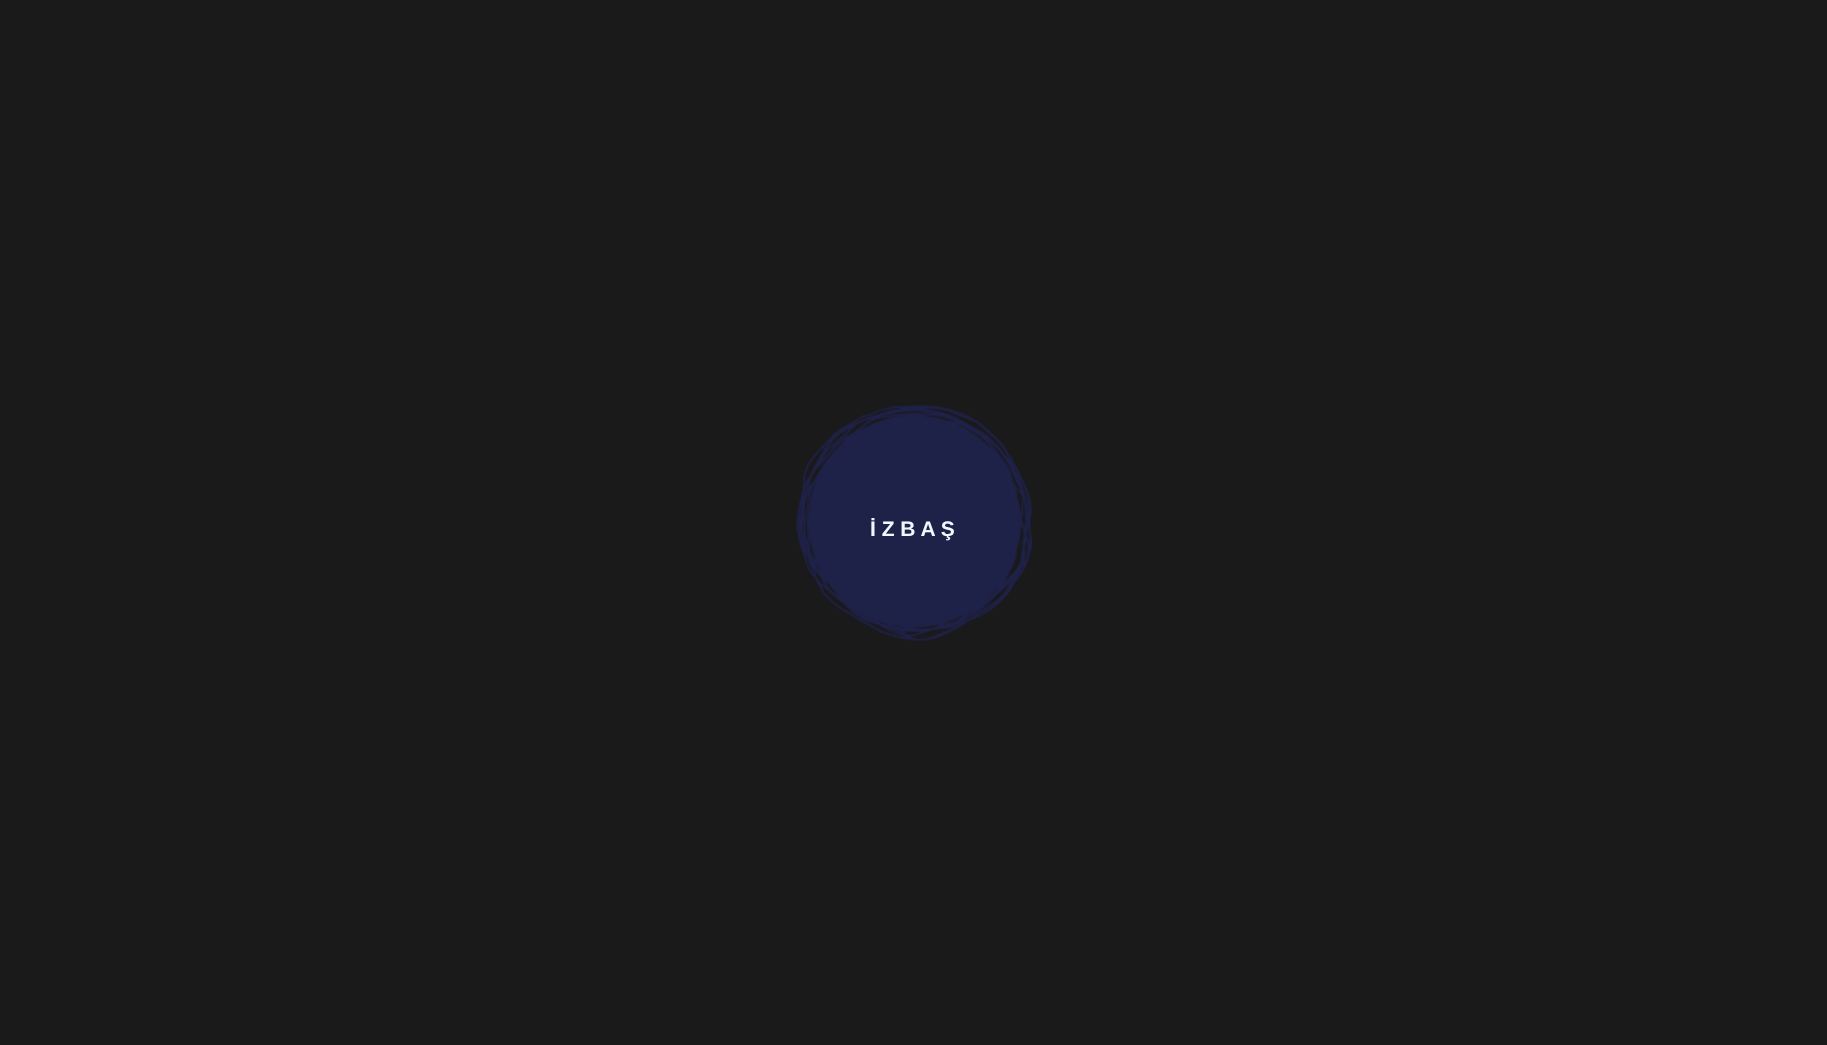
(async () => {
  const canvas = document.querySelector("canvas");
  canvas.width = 1827;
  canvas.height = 1045;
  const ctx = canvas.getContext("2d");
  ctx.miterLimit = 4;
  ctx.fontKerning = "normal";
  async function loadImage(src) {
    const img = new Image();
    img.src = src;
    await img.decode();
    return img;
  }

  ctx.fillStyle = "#1a1a1a";
  ctx.fillRect(0, 0, 1827, 1045);
  ctx.drawImage(await loadImage("img/1.png"), 796, 405, 236, 237);
  ctx.font = "bold 21px Liberation Sans";
  ctx.fillStyle = "#f0f8ff";
  ctx.fillText("İ Z B A Ş", 870, 536);
})();
